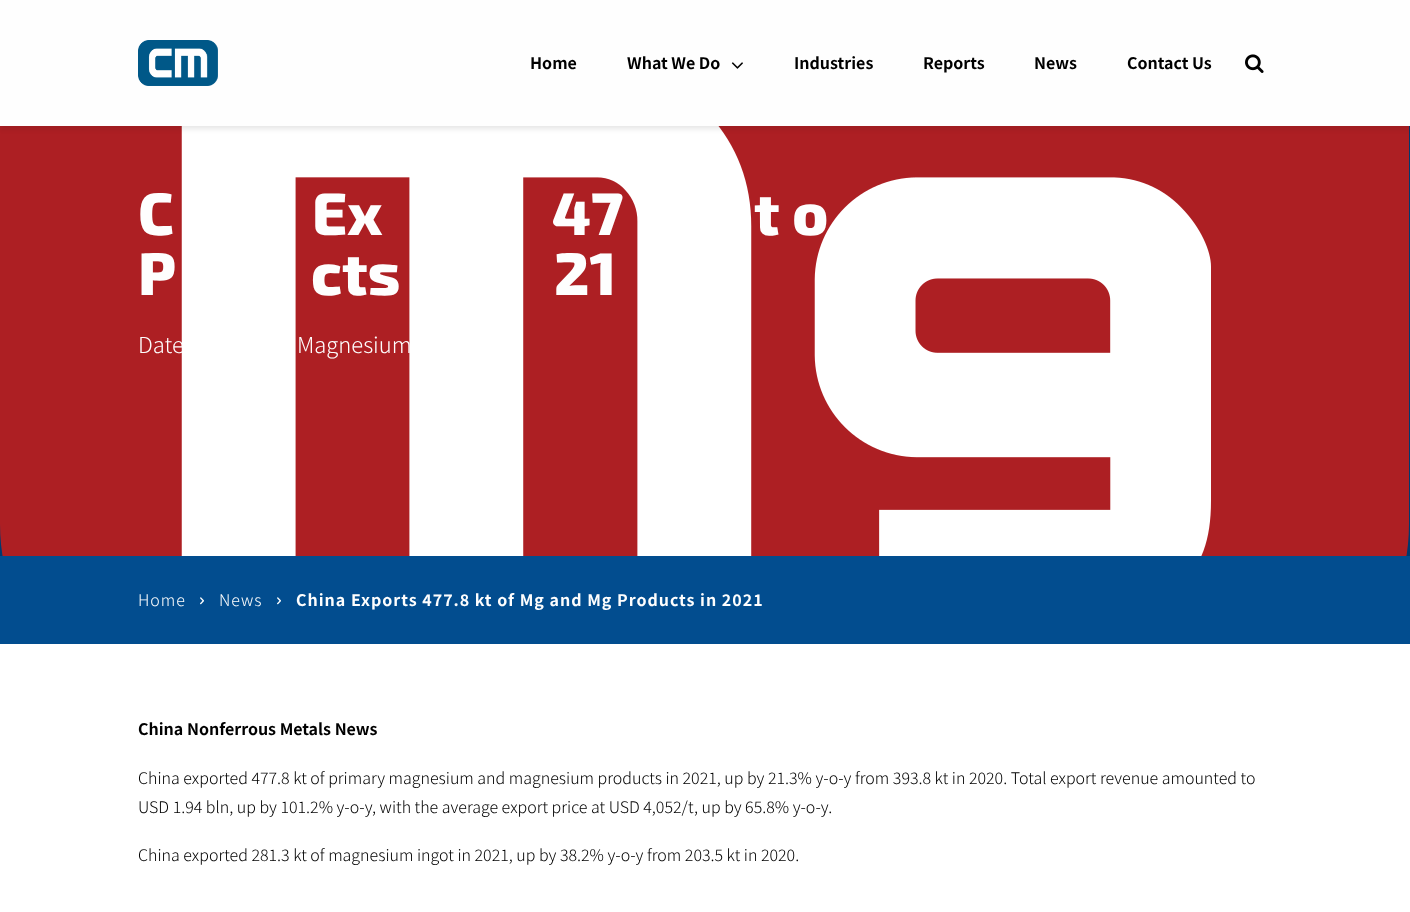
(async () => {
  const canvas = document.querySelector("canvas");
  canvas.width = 1410;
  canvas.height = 912;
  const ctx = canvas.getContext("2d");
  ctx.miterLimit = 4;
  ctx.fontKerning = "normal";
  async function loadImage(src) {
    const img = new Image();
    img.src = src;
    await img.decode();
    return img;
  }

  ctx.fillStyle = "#ffffff";
  ctx.fillRect(0, 0, 1410, 912);
  ctx.fillStyle = "#00396e";
  ctx.fillRect(0, 126, 1410, 430);
  ctx.drawImage(await loadImage("img/4.png"), 0, 126, 1409, 430);
  ctx.fillStyle = "rgba(10, 10, 10, 0.1)";
  ctx.filter = "blur(2.5px)";
  ctx.beginPath();
  ctx.rect(0, 3, 1410, 126);
  ctx.fill();
  ctx.filter = "none";
  ctx.fillStyle = "#fefefe";
  ctx.fillRect(0, 0, 1410, 126);
  ctx.drawImage(await loadImage("img/1.png"), 138, 40, 80, 46);
  ctx.drawImage(await loadImage("img/2.png"), 731, 62, 12, 7);
  ctx.drawImage(await loadImage("img/3.png"), 1245, 54, 19, 19);
  ctx.fillStyle = "#024d8f";
  ctx.fillRect(0, 556, 1410, 88);
  ctx.drawImage(await loadImage("img/5.png"), 200, 597, 4, 8);
  ctx.drawImage(await loadImage("img/5.png"), 277, 597, 4, 8);
  ctx.font = "bold 16px Noto Sans JP";
  ctx.fillStyle = "#000000";
  for (const [text, x, y] of [
    ["Home", 530, 69],
    ["What We Do", 627, 69],
    ["Industries", 794, 69],
    ["Reports", 923, 69],
    ["News", 1034, 69],
    ["Contact Us", 1127, 69],
  ]) {
    ctx.fillText(text, x, y);
  }
  ctx.font = "800 60px 'Exo 2'";
  ctx.fillStyle = "#fefefe";
  for (const [text, x, y] of [
    ["C", 138, 235],
    ["Ex", 312, 235],
    ["47", 552, 235],
    ["t o", 754, 235],
    ["P", 138, 295],
    ["cts", 311, 295],
    ["21", 554, 295],
  ]) {
    ctx.fillText(text, x, y);
  }
  ctx.font = "300 22px Noto Sans JP";
  ctx.fillText("Date", 138, 353);
  ctx.fillText("Magnesium", 297, 353);
  ctx.letterSpacing = "1px";
  ctx.font = "300 16px Noto Sans JP";
  ctx.fillText("Home", 138, 606);
  ctx.fillText("News", 219, 606);
  ctx.font = "bold 16px Noto Sans JP";
  ctx.fillText("China Exports 477.8 kt of Mg and Mg Products in 2021", 296, 606);
  ctx.letterSpacing = "0px";
  ctx.fillStyle = "#000000";
  ctx.fillText("China Nonferrous Metals News", 138, 735);
  ctx.font = "300 16px Noto Sans JP";
  for (const [text, x, y] of [
    ["China exported 477.8 kt of primary magnesium and magnesium products in 2021, up by 21.3% y-o-y from 393.8 kt in 2020. Total export revenue amounted to", 138, 784],
    ["USD 1.94 bln, up by 101.2% y-o-y, with the average export price at USD 4,052/t, up by 65.8% y-o-y.", 138, 813],
    ["China exported 281.3 kt of magnesium ingot in 2021, up by 38.2% y-o-y from 203.5 kt in 2020.", 138, 861],
  ]) {
    ctx.fillText(text, x, y);
  }
})();
